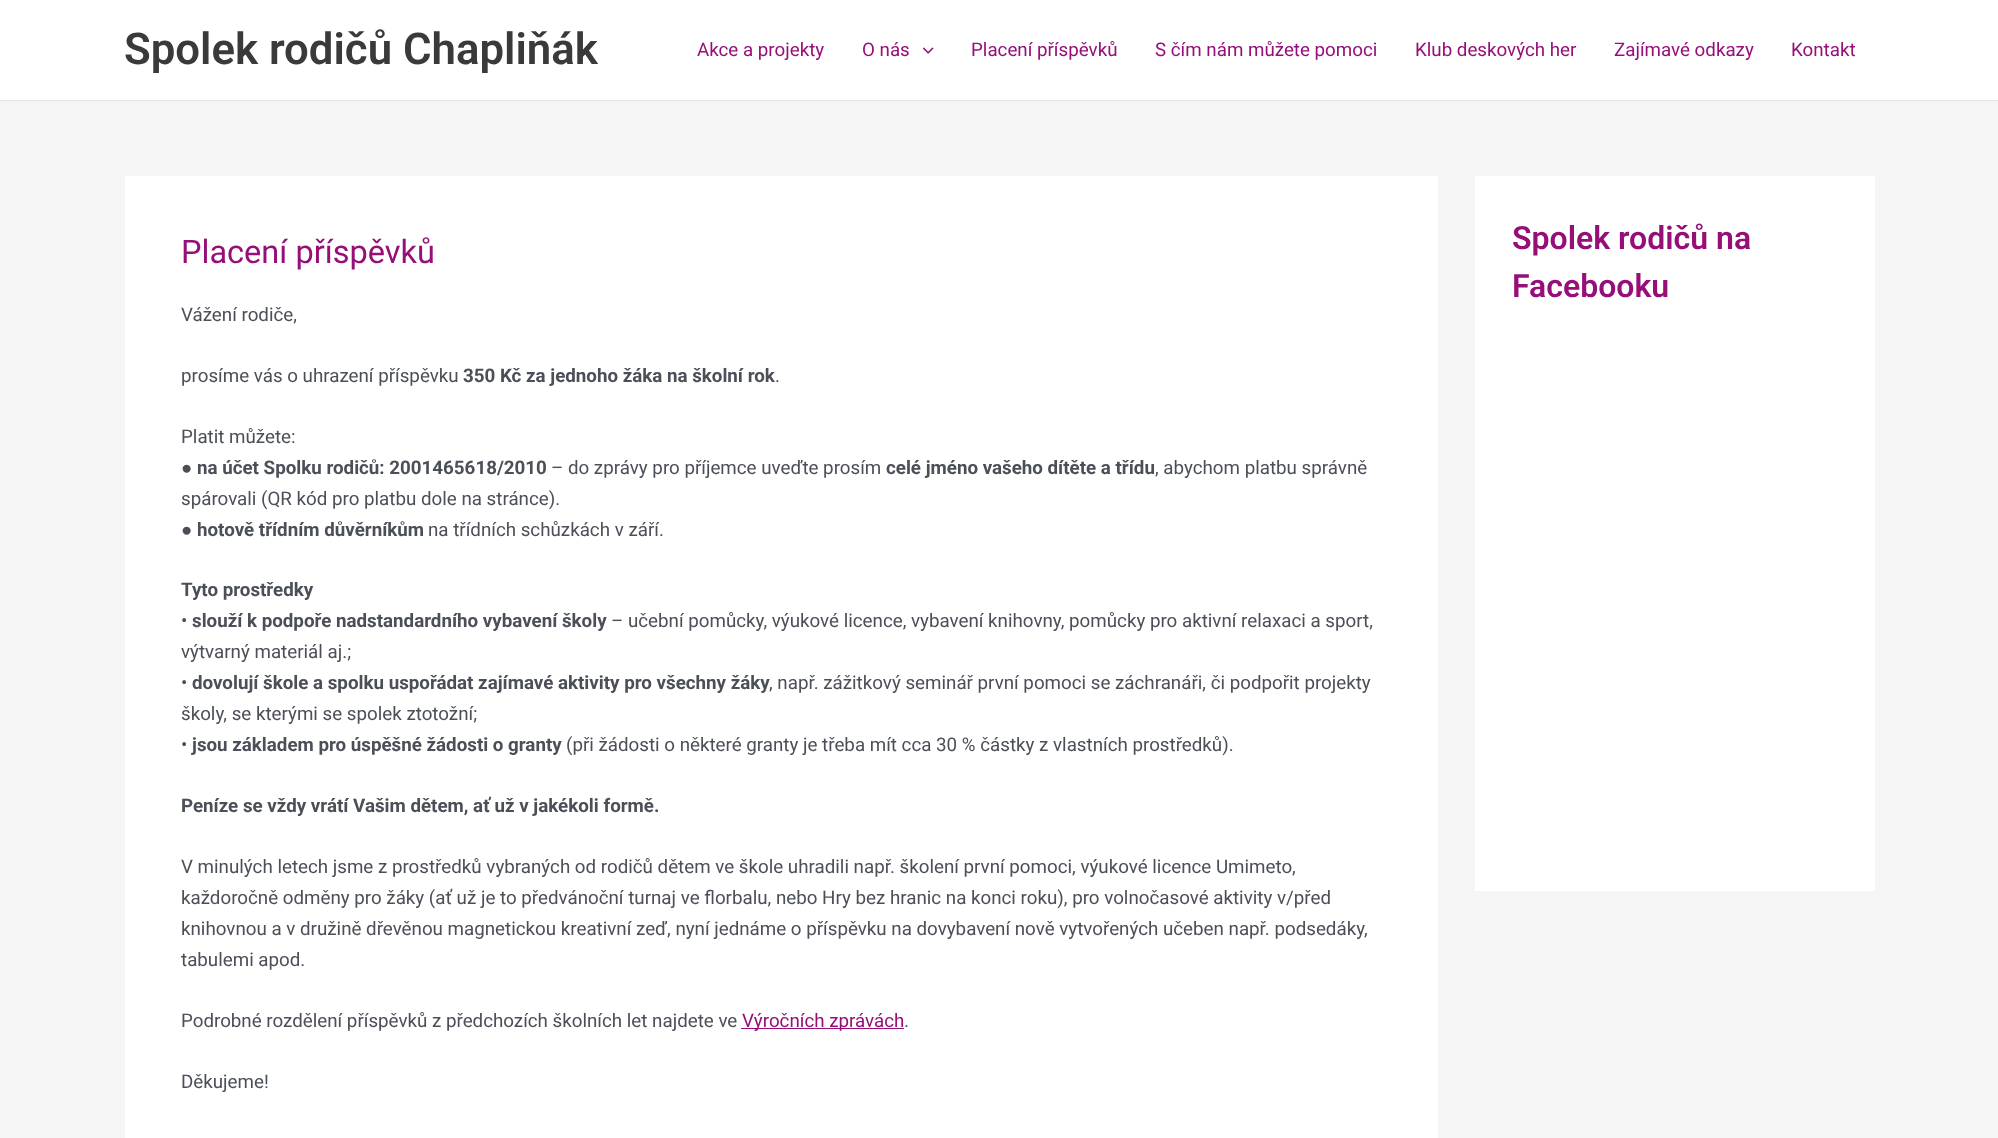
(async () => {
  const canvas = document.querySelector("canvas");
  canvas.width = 1998;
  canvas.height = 1138;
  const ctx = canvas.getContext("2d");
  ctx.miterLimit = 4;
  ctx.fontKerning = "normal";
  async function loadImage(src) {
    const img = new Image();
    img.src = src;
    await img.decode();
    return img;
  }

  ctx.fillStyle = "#f5f5f5";
  ctx.fillRect(0, 0, 1998, 1138);
  ctx.fillStyle = "#ffffff";
  ctx.fillRect(0, 0, 1998, 100);
  ctx.fillStyle = "#e5e5e5";
  ctx.fillRect(0, 100, 1998, 1);
  ctx.drawImage(await loadImage("img/1.png"), 923, 47, 11, 7);
  for (const [x, y, w, h, color] of [
    [125, 176, 1313, 962, "#ffffff"],
    [741, 1028, 163, 1, "#960f79"],
    [1475, 176, 400, 715, "#ffffff"],
  ]) {
    ctx.fillStyle = color;
    ctx.fillRect(x, y, w, h);
  }
  ctx.font = "600 43.75px Roboto";
  ctx.fillStyle = "#3a3a3a";
  ctx.fillText("Spolek rodičů Chapliňák", 124, 64);
  ctx.font = "18.75px Roboto";
  ctx.fillStyle = "#960f79";
  for (const [text, x, y] of [
    ["Akce a projekty", 697, 56],
    ["O nás", 862, 56],
    ["Placení příspěvků", 971, 56],
    ["S čím nám můžete pomoci", 1155, 56],
    ["Klub deskových her", 1415, 56],
    ["Zajímavé odkazy", 1614, 56],
    ["Kontakt", 1791, 56],
  ]) {
    ctx.fillText(text, x, y);
  }
  ctx.font = "32.5px Roboto";
  ctx.fillText("Placení příspěvků", 181, 263);
  ctx.font = "18.75px Roboto";
  ctx.fillStyle = "#4b4f58";
  ctx.fillText("Vážení rodiče,", 181, 321);
  ctx.fillText("prosíme vás o uhrazení příspěvku", 181, 382);
  ctx.font = "bold 18.75px Roboto";
  ctx.fillText("350 Kč za jednoho žáka na školní rok", 463, 382);
  ctx.font = "18.75px Roboto";
  ctx.fillText(".", 775, 382);
  ctx.fillText("Platit můžete:", 181, 443);
  ctx.font = "bold 18.75px Liberation Sans";
  ctx.fillText("●", 181, 474);
  ctx.font = "bold 18.75px Roboto";
  ctx.fillText("na účet Spolku rodičů: 2001465618/2010", 197, 474);
  ctx.font = "18.75px Roboto";
  ctx.fillText("– do zprávy pro příjemce uveďte prosím", 551, 474);
  ctx.font = "bold 18.75px Roboto";
  ctx.fillText("celé jméno vašeho dítěte a třídu", 886, 474);
  ctx.font = "18.75px Roboto";
  ctx.fillText(", abychom platbu správně", 1155, 474);
  ctx.fillText("spárovali (QR kód pro platbu dole na stránce).", 181, 505);
  ctx.font = "18.75px Liberation Sans";
  ctx.fillText("●", 181, 536);
  ctx.font = "bold 18.75px Roboto";
  ctx.fillText("hotově třídním důvěrníkům", 197, 536);
  ctx.font = "18.75px Roboto";
  ctx.fillText("na třídních schůzkách v září.", 428, 536);
  ctx.font = "bold 18.75px Roboto";
  ctx.fillText("Tyto prostředky", 181, 596);
  ctx.font = "18.75px Roboto";
  ctx.fillText("•", 181, 627);
  ctx.font = "bold 18.75px Roboto";
  ctx.fillText("slouží k podpoře nadstandardního vybavení školy", 192, 627);
  ctx.font = "18.75px Roboto";
  for (const [text, x, y] of [
    ["– učební pomůcky, výukové licence, vybavení knihovny, pomůcky pro aktivní relaxaci a sport,", 611, 627],
    ["výtvarný materiál aj.;", 181, 658],
    ["•", 181, 689],
  ]) {
    ctx.fillText(text, x, y);
  }
  ctx.font = "bold 18.75px Roboto";
  ctx.fillText("dovolují škole a spolku uspořádat zajímavé aktivity pro všechny žáky", 192, 689);
  ctx.font = "18.75px Roboto";
  for (const [text, x, y] of [
    [", např. zážitkový seminář první pomoci se záchranáři, či podpořit projekty", 769, 689],
    ["školy, se kterými se spolek ztotožní;", 181, 720],
    ["•", 181, 751],
  ]) {
    ctx.fillText(text, x, y);
  }
  ctx.font = "bold 18.75px Roboto";
  ctx.fillText("jsou základem pro úspěšné žádosti o granty", 192, 751);
  ctx.font = "18.75px Roboto";
  ctx.fillText("(při žádosti o některé granty je třeba mít cca 30 % částky z vlastních prostředků).", 566, 751);
  ctx.font = "bold 18.75px Roboto";
  ctx.fillText("Peníze se vždy vrátí Vašim dětem, ať už v jakékoli formě.", 181, 812);
  ctx.font = "18.75px Roboto";
  for (const [text, x, y] of [
    ["V minulých letech jsme z prostředků vybraných od rodičů dětem ve škole uhradili např. školení první pomoci, výukové licence Umimeto,", 181, 873],
    ["každoročně odměny pro žáky (ať už je to předvánoční turnaj ve florbalu, nebo Hry bez hranic na konci roku), pro volnočasové aktivity v/před", 181, 904],
    ["knihovnou a v družině dřevěnou magnetickou kreativní zeď, nyní jednáme o příspěvku na dovybavení nově vytvořených učeben např. podsedáky,", 181, 935],
    ["tabulemi apod.", 181, 966],
    ["Podrobné rozdělení příspěvků z předchozích školních let najdete ve", 181, 1027],
  ]) {
    ctx.fillText(text, x, y);
  }
  ctx.fillStyle = "#960f79";
  ctx.fillText("Výročních zprávách", 742, 1027);
  ctx.fillStyle = "#4b4f58";
  ctx.fillText(".", 904, 1027);
  ctx.fillText("Děkujeme!", 181, 1088);
  ctx.font = "600 32px Roboto";
  ctx.fillStyle = "#960f79";
  ctx.fillText("Spolek rodičů na", 1512, 249);
  ctx.fillText("Facebooku", 1512, 297);
})();
